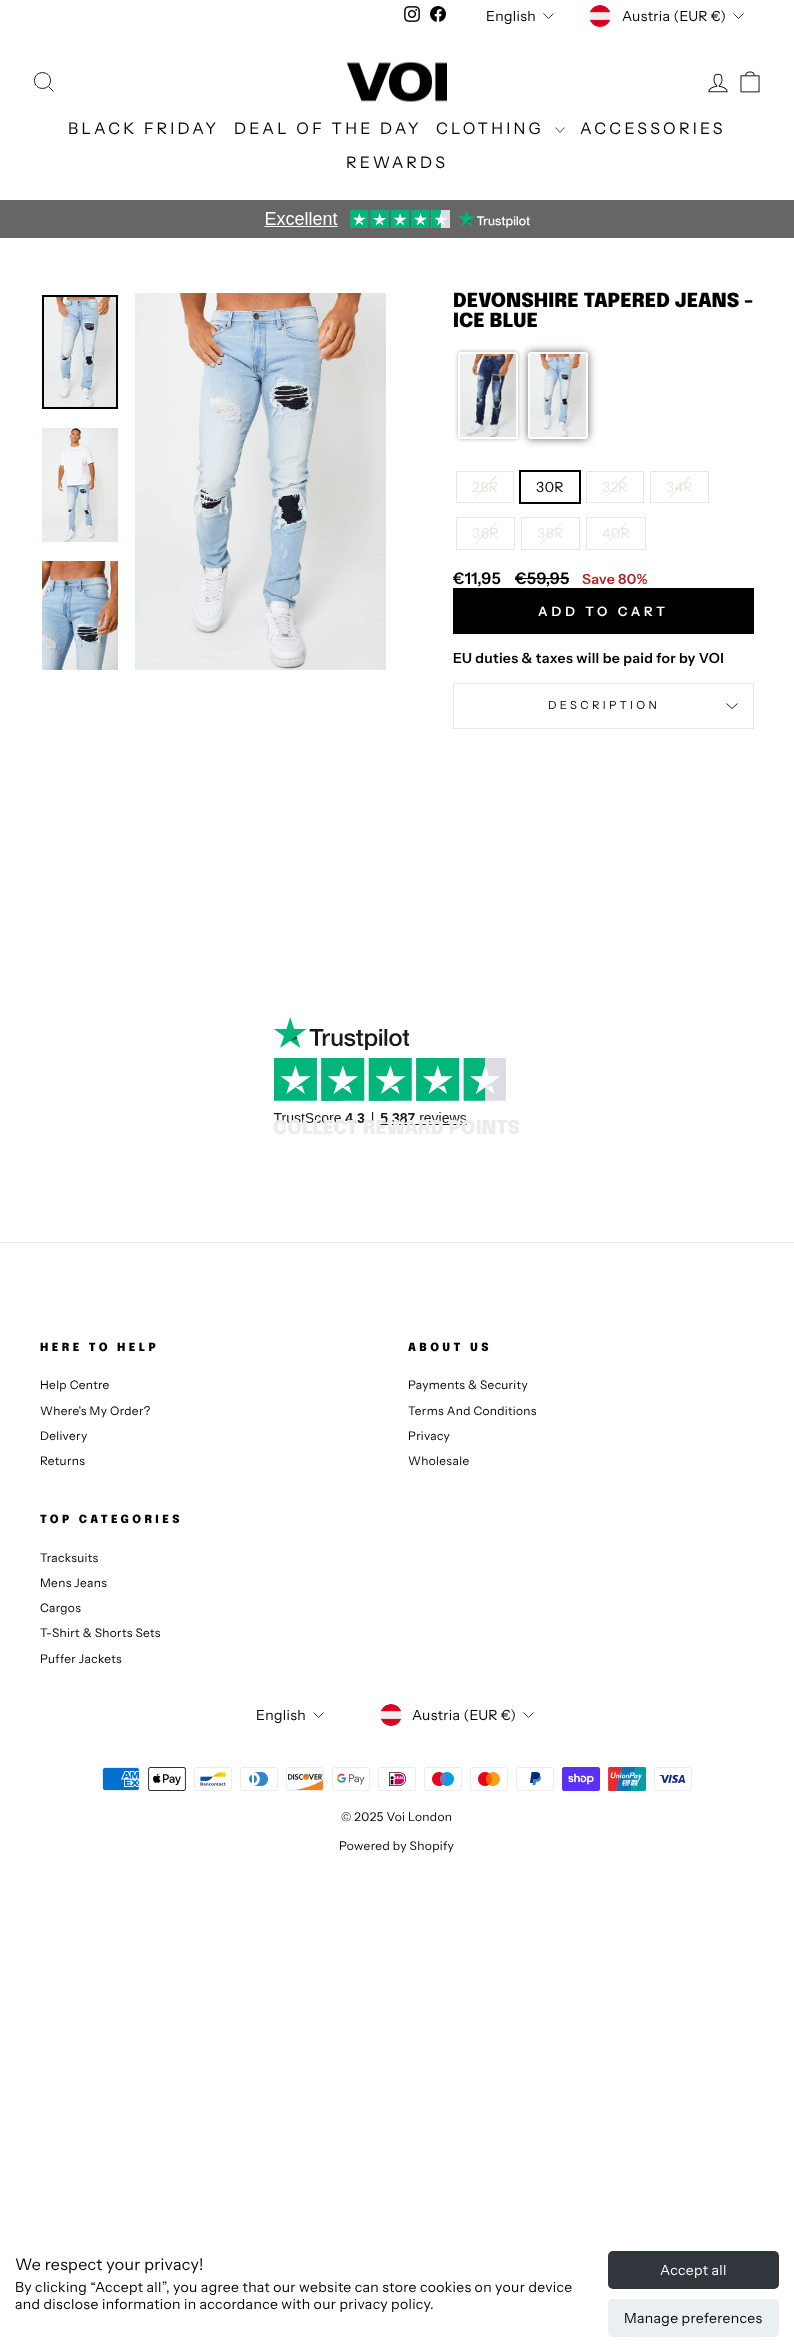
(async () => {
  const canvas = document.querySelector("canvas");
  canvas.width = 794;
  canvas.height = 2352;
  const ctx = canvas.getContext("2d");
  ctx.miterLimit = 4;
  ctx.fontKerning = "normal";
  async function loadImage(src) {
    const img = new Image();
    img.src = src;
    await img.decode();
    return img;
  }
  let path;

  ctx.fillStyle = "#ffffff";
  ctx.fillRect(0, 0, 794, 2352);
  ctx.drawImage(await loadImage("img/1.png"), 404, 6, 16, 16);
  ctx.drawImage(await loadImage("img/2.png"), 430, 6, 16, 16);
  path = new Path2D("M543.5 13.5L548.5 18.5L553.5 13.5");
  ctx.strokeStyle = "#000000";
  ctx.lineWidth = 0.8;
  ctx.stroke(path);
  ctx.drawImage(await loadImage("img/3.png"), 589, 5, 22, 22);
  path = new Path2D("M733.5 13.5L738.5 18.5L743.5 13.5");
  ctx.stroke(path);
  ctx.fillStyle = "#666666";
  ctx.fillRect(0, 200, 794, 38);
  ctx.fillStyle = "rgba(0, 0, 0, 0.2)";
  ctx.filter = "blur(0.5px)";
  ctx.beginPath();
  ctx.rect(0, 32, 794, 168);
  ctx.fill();
  ctx.filter = "none";
  ctx.fillStyle = "#ffffff";
  ctx.fillRect(0, 32, 794, 168);
  path = new Path2D("M50.5 80.5C50.5 91 34.5 91 34.5 80.5C34.5 70 50.5 70 50.5 80.5ZM53.5 91.5L48.5 86.5");
  ctx.lineWidth = 0.9;
  ctx.stroke(path);
  ctx.drawImage(await loadImage("img/4.png"), 347, 62, 100, 40);
  ctx.drawImage(await loadImage("img/5.png"), 708, 73, 20, 20);
  ctx.drawImage(await loadImage("img/6.png"), 740, 71, 20, 22);
  path = new Path2D("M555.5 127.5L560 132.5L564.5 127.5");
  ctx.lineWidth = 0.7;
  ctx.stroke(path);
  ctx.drawImage(await loadImage("img/7.png"), 264, 210, 266, 18);
  ctx.drawImage(await loadImage("img/8.png"), 44, 297, 72, 110);
  ctx.lineWidth = 2;
  ctx.strokeRect(43, 296, 74, 112);
  ctx.drawImage(await loadImage("img/9.png"), 42, 428, 76, 114);
  ctx.drawImage(await loadImage("img/10.png"), 42, 561, 76, 109);
  ctx.drawImage(await loadImage("img/11.png"), 135, 293, 251, 377);
  ctx.fillStyle = "rgba(0, 0, 0, 0.3)";
  ctx.filter = "blur(2px)";
  ctx.beginPath();
  ctx.roundRect(458, 352, 60, 87, 3);
  ctx.fill();
  ctx.filter = "none";
  ctx.beginPath();
  ctx.roundRect(459, 353, 58, 85, 2);
  ctx.strokeStyle = "#ffffff";
  ctx.stroke();
  ctx.drawImage(await loadImage("img/12.png"), 460, 354, 56, 83);
  ctx.fillStyle = "rgba(0, 0, 0, 0.6)";
  ctx.filter = "blur(4px)";
  ctx.beginPath();
  ctx.roundRect(528, 352, 60, 87, 3);
  ctx.fill();
  ctx.filter = "none";
  ctx.beginPath();
  ctx.roundRect(529, 353, 58, 85, 2);
  ctx.stroke();
  ctx.drawImage(await loadImage("img/13.png"), 530, 354, 56, 83);
  ctx.strokeStyle = "#e8e8e1";
  ctx.lineWidth = 1;
  ctx.strokeRect(456.5, 471.5, 57, 31);
  ctx.fillStyle = "#e8e8e1";
  path = new Path2D("M496 475.5L497 476.5L475 498L474.5 497.5Z");
  ctx.fill(path);
  ctx.strokeStyle = "#000000";
  ctx.lineWidth = 2;
  ctx.strokeRect(520, 471, 60, 32);
  ctx.strokeStyle = "#e8e8e1";
  ctx.lineWidth = 1;
  ctx.strokeRect(586.5, 471.5, 57, 31);
  path = new Path2D("M626 475.5L627 476.5L605 498L604.5 497.5Z");
  ctx.fill(path);
  ctx.strokeRect(650.5, 471.5, 58, 31);
  path = new Path2D("M690.5 475.5L691 476.5L669.5 498L668.5 497.5Z");
  ctx.fill(path);
  ctx.strokeRect(456.5, 517.5, 58, 32);
  path = new Path2D("M496.5 522.5L497 523L475.5 544.5L474.5 544Z");
  ctx.fill(path);
  ctx.strokeRect(521.5, 517.5, 58, 32);
  path = new Path2D("M561.5 522.5L562 523L540.5 544.5L539.5 544Z");
  ctx.fill(path);
  ctx.strokeRect(586.5, 517.5, 59, 32);
  path = new Path2D("M626.5 522.5L627.5 523L605.5 544.5L605 544Z");
  ctx.fill(path);
  for (const [x, y, w, h, color] of [
    [515, 578, 54, 1, "#000000"],
    [453, 588, 301, 46, "#000000"],
    [453, 728, 301, 1, "#e8e8e1"],
    [453, 683, 301, 1, "#e8e8e1"],
    [753, 683, 1, 45, "#e8e8e1"],
    [453, 683, 1, 45, "#e8e8e1"],
  ]) {
    ctx.fillStyle = color;
    ctx.fillRect(x, y, w, h);
  }
  path = new Path2D("M726.5 703.5L732 708.5L737.5 703.5");
  ctx.strokeStyle = "#000000";
  ctx.lineWidth = 0.9;
  ctx.stroke(path);
  ctx.drawImage(await loadImage("img/14.png"), 273, 1017, 233, 109);
  ctx.fillRect(0, 1242, 794, 1);
  path = new Path2D("M313.5 1712.5L318.5 1717.5L323.5 1712.5");
  ctx.lineWidth = 0.8;
  ctx.stroke(path);
  ctx.drawImage(await loadImage("img/3.png"), 380, 1704, 22, 22);
  path = new Path2D("M523.5 1712.5L528.5 1717.5L533.5 1712.5");
  ctx.stroke(path);
  ctx.drawImage(await loadImage("img/15.png"), 102, 1767, 38, 24);
  ctx.drawImage(await loadImage("img/16.png"), 148, 1767, 38, 24);
  ctx.drawImage(await loadImage("img/17.png"), 194, 1767, 38, 24);
  ctx.drawImage(await loadImage("img/18.png"), 240, 1767, 38, 24);
  ctx.drawImage(await loadImage("img/19.png"), 286, 1767, 38, 24);
  ctx.drawImage(await loadImage("img/20.png"), 332, 1767, 38, 24);
  ctx.drawImage(await loadImage("img/21.png"), 378, 1767, 38, 24);
  ctx.drawImage(await loadImage("img/22.png"), 424, 1767, 38, 24);
  ctx.drawImage(await loadImage("img/23.png"), 470, 1767, 38, 24);
  ctx.drawImage(await loadImage("img/24.png"), 516, 1767, 38, 24);
  ctx.drawImage(await loadImage("img/25.png"), 562, 1767, 38, 24);
  ctx.drawImage(await loadImage("img/26.png"), 608, 1767, 38, 24);
  ctx.drawImage(await loadImage("img/27.png"), 654, 1767, 38, 24);
  ctx.fillStyle = "#30363c";
  ctx.beginPath();
  ctx.roundRect(608, 2251, 171, 38, 5);
  ctx.fill();
  ctx.fillStyle = "#eaeff2";
  ctx.beginPath();
  ctx.roundRect(608, 2299, 171, 38, 5);
  ctx.fill();
  ctx.letterSpacing = "0.35px";
  ctx.font = "14px Instrument Sans";
  ctx.fillStyle = "#000000";
  ctx.fillText("English", 486, 21);
  ctx.fillText("Austria (EUR €)", 622, 21);
  ctx.letterSpacing = "3.25px";
  ctx.font = "16px Instrument Sans";
  for (const [text, x, y] of [
    ["BLACK FRIDAY", 68, 134],
    ["DEAL OF THE DAY", 234, 134],
    ["CLOTHING", 436, 134],
    ["ACCESSORIES", 580, 134],
    ["REWARDS", 346, 168],
  ]) {
    ctx.fillText(text, x, y);
  }
  ctx.letterSpacing = "0px";
  ctx.font = "900 19.5px Epilogue";
  ctx.fillText("DEVONSHIRE TAPERED JEANS -", 453, 307);
  ctx.fillText("ICE BLUE", 453, 327);
  ctx.letterSpacing = "0.35px";
  ctx.font = "14px Instrument Sans";
  ctx.fillStyle = "#e8e8e1";
  ctx.fillText("28R", 472, 492);
  ctx.fillStyle = "#000000";
  ctx.fillText("30R", 536, 492);
  ctx.fillStyle = "#e8e8e1";
  for (const [text, x, y] of [
    ["32R", 602, 492],
    ["34R", 666, 492],
    ["36R", 472, 538],
    ["38R", 537, 538],
    ["40R", 602, 538],
  ]) {
    ctx.fillText(text, x, y);
  }
  ctx.font = "600 16px Instrument Sans";
  ctx.fillStyle = "#000000";
  ctx.fillText("€11,95", 453, 584);
  ctx.fillText("€59,95", 515, 584);
  ctx.font = "600 14px Instrument Sans";
  ctx.fillStyle = "#b22222";
  ctx.fillText("Save 80%", 582, 584);
  ctx.letterSpacing = "3.9px";
  ctx.font = "600 13px Instrument Sans";
  ctx.fillStyle = "#ffffff";
  ctx.fillText("ADD TO CART", 538, 616);
  ctx.letterSpacing = "0.35px";
  ctx.font = "600 14px Instrument Sans";
  ctx.fillStyle = "#000000";
  ctx.fillText("EU duties & taxes will be paid for by VOI", 453, 663);
  ctx.letterSpacing = "3.4px";
  ctx.font = "11.25px Instrument Sans";
  ctx.fillText("DESCRIPTION", 548, 709);
  ctx.font = "900 11.25px Epilogue";
  ctx.fillText("HERE TO HELP", 40, 1351);
  ctx.letterSpacing = "0.35px";
  ctx.font = "11.9px Instrument Sans";
  for (const [text, x, y] of [
    ["Help Centre", 40, 1389],
    ["Where's My Order?", 40, 1415],
    ["Delivery", 40, 1440],
    ["Returns", 40, 1465],
  ]) {
    ctx.fillText(text, x, y);
  }
  ctx.letterSpacing = "3.4px";
  ctx.font = "900 11.25px Epilogue";
  ctx.fillText("ABOUT US", 408, 1351);
  ctx.letterSpacing = "0.35px";
  ctx.font = "11.9px Instrument Sans";
  for (const [text, x, y] of [
    ["Payments & Security", 408, 1389],
    ["Terms And Conditions", 408, 1415],
    ["Privacy", 408, 1440],
    ["Wholesale", 408, 1465],
  ]) {
    ctx.fillText(text, x, y);
  }
  ctx.letterSpacing = "3.4px";
  ctx.font = "900 11.25px Epilogue";
  ctx.fillText("TOP CATEGORIES", 40, 1523);
  ctx.letterSpacing = "0.35px";
  ctx.font = "11.9px Instrument Sans";
  for (const [text, x, y] of [
    ["Tracksuits", 40, 1562],
    ["Mens Jeans", 40, 1587],
    ["Cargos", 40, 1612],
    ["T-Shirt & Shorts Sets", 40, 1637],
    ["Puffer Jackets", 40, 1663],
  ]) {
    ctx.fillText(text, x, y);
  }
  ctx.font = "14px Instrument Sans";
  ctx.fillText("English", 256, 1720);
  ctx.fillText("Austria (EUR €)", 412, 1720);
  ctx.font = "12px Instrument Sans";
  ctx.fillText("© 2025 Voi London", 341, 1821);
  ctx.fillText("Powered by Shopify", 339, 1850);
  ctx.letterSpacing = "0px";
  ctx.font = "900 19px Epilogue";
  ctx.fillStyle = "#ececec";
  ctx.fillText("COLLECT REWARD POINTS", 273, 1134);
  ctx.letterSpacing = "0.35px";
  ctx.font = "16px Instrument Sans";
  ctx.fillStyle = "#000000";
  ctx.fillText("We respect your privacy!", 15, 2270);
  ctx.font = "14px Instrument Sans";
  ctx.fillText("By clicking “Accept all”, you agree that our website can store cookies on your device", 15, 2292);
  ctx.fillText("and disclose information in accordance with our privacy policy.", 15, 2309);
  ctx.fillStyle = "#ffffff";
  ctx.fillText("Accept all", 660, 2275);
  ctx.fillStyle = "#000000";
  ctx.fillText("Manage preferences", 624, 2323);
})();
